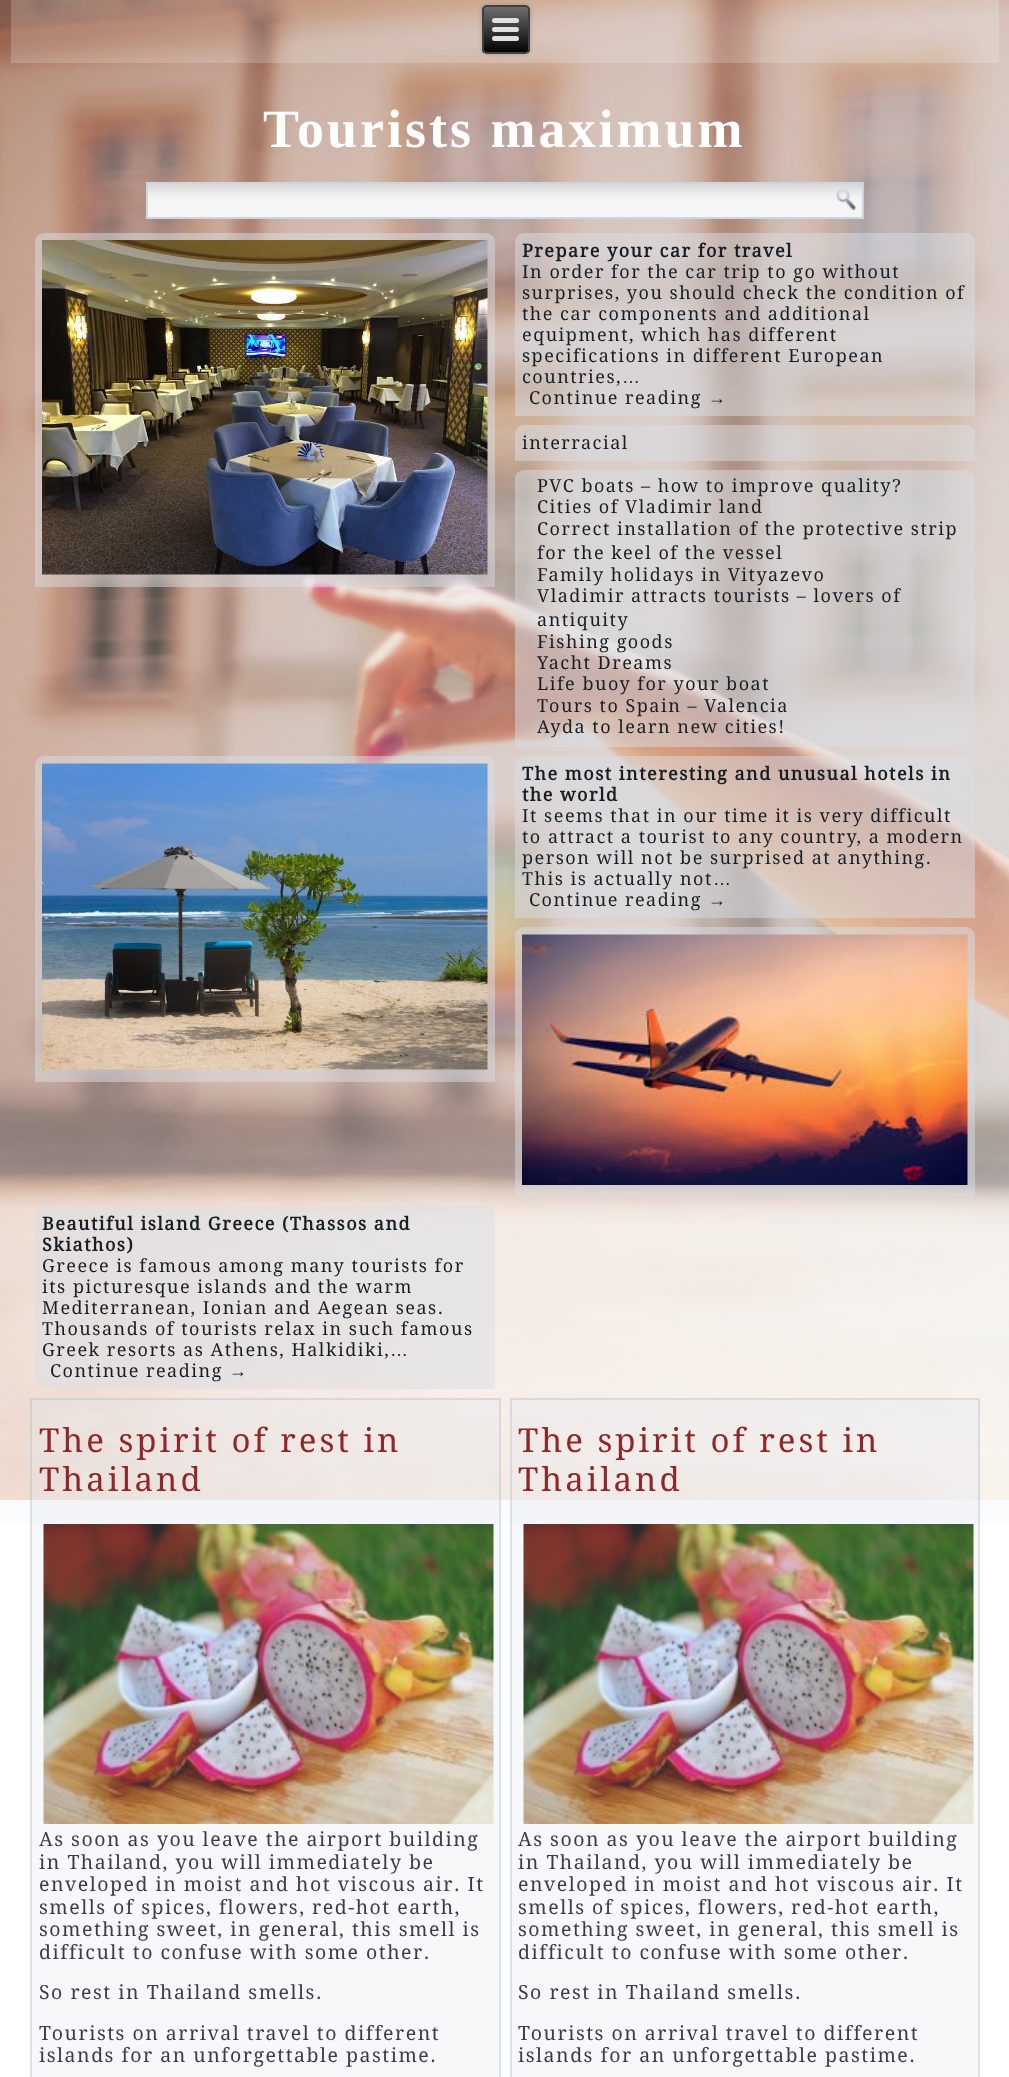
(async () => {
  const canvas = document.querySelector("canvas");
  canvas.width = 1009;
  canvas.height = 2077;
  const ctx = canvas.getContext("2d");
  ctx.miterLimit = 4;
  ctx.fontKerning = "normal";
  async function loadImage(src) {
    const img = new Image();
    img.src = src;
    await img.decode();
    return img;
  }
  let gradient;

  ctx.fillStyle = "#ffffff";
  ctx.fillRect(0, 0, 1009, 2077);
  ctx.drawImage(await loadImage("img/1.png"), 0, 0, 1009, 1523);
  ctx.fillStyle = "rgba(249, 250, 251, 0.2)";
  ctx.fillRect(11, 0, 988, 63);
  ctx.fillStyle = "rgba(0, 0, 0, 0.2)";
  ctx.filter = "blur(2px)";
  ctx.beginPath();
  ctx.roundRect(482, 5, 48, 49, 5);
  ctx.fill();
  ctx.filter = "none";
  ctx.save();
  ctx.beginPath();
  ctx.roundRect(482, 5, 48, 49, 5);
  ctx.clip();
  gradient = ctx.createLinearGradient(506, 6, 506, 53);
  gradient.addColorStop(0, "#707070");
  gradient.addColorStop(1, "#000000");
  ctx.fillStyle = gradient;
  ctx.fillRect(482, 6, 48, 47);
  ctx.restore();
  ctx.beginPath();
  ctx.roundRect(483, 6, 46, 47, 4);
  ctx.strokeStyle = "#404040";
  ctx.lineWidth = 2;
  ctx.stroke();
  ctx.fillStyle = "#e0e0e0";
  ctx.beginPath();
  ctx.roundRect(492, 18, 27, 5, 2.5);
  ctx.fill();
  ctx.beginPath();
  ctx.roundRect(492, 27, 27, 5, 2.5);
  ctx.fill();
  ctx.beginPath();
  ctx.roundRect(492, 36, 27, 5, 2.5);
  ctx.fill();
  gradient = ctx.createLinearGradient(505, 183, 505, 218);
  gradient.addColorStop(0, "#d6d6d6");
  gradient.addColorStop(0.4, "#f2f2f2");
  gradient.addColorStop(0.5, "#f5f5f5");
  gradient.addColorStop(1, "#f5f5f5");
  ctx.fillStyle = gradient;
  ctx.fillRect(148, 184, 714, 33);
  ctx.strokeStyle = "#ccd6e0";
  ctx.strokeRect(147, 183, 716, 35);
  ctx.drawImage(await loadImage("img/2.png"), 836, 189, 21, 22);
  ctx.fillStyle = "rgba(217, 222, 227, 0.5)";
  ctx.beginPath();
  ctx.roundRect(35, 233, 460, 354, [9, 9, 0, 0]);
  ctx.fill();
  ctx.drawImage(await loadImage("img/3.png"), 42, 240, 446, 335);
  ctx.beginPath();
  ctx.roundRect(515, 233, 460, 183, [9, 9, 0, 0]);
  ctx.fill();
  ctx.beginPath();
  ctx.roundRect(515, 425, 460, 36, [9, 9, 0, 0]);
  ctx.fill();
  ctx.beginPath();
  ctx.roundRect(515, 470, 460, 277, [9, 9, 0, 0]);
  ctx.fill();
  ctx.beginPath();
  ctx.roundRect(35, 756, 460, 326, [9, 9, 0, 0]);
  ctx.fill();
  ctx.drawImage(await loadImage("img/4.png"), 42, 763, 446, 307);
  ctx.beginPath();
  ctx.roundRect(515, 756, 460, 162, [9, 9, 0, 0]);
  ctx.fill();
  ctx.beginPath();
  ctx.roundRect(515, 927, 460, 270, [9, 9, 0, 0]);
  ctx.fill();
  ctx.drawImage(await loadImage("img/5.png"), 522, 934, 446, 251);
  ctx.beginPath();
  ctx.roundRect(35, 1206, 460, 183, [9, 9, 0, 0]);
  ctx.fill();
  ctx.fillStyle = "rgba(226, 232, 238, 0.3)";
  ctx.fillRect(30, 1398, 471, 679);
  ctx.strokeStyle = "rgba(156, 175, 196, 0.3)";
  ctx.strokeRect(31, 1399, 469, 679);
  ctx.drawImage(await loadImage("img/6.png"), 43, 1524, 451, 300);
  ctx.fillRect(510, 1398, 470, 679);
  ctx.strokeRect(511, 1399, 468, 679);
  ctx.drawImage(await loadImage("img/7.png"), 523, 1524, 451, 300);
  ctx.letterSpacing = "3px";
  ctx.font = "bold 54px Liberation Serif";
  ctx.fillStyle = "#ffffff";
  ctx.fillText("Tourists maximum", 263, 147);
  ctx.letterSpacing = "1.5px";
  ctx.font = "bold 18px Droid Serif";
  ctx.fillStyle = "#171e26";
  ctx.fillText("Prepare your car for travel", 522, 257);
  ctx.font = "18px Droid Serif";
  for (const [text, x, y] of [
    ["In order for the car trip to go without", 522, 278],
    ["surprises, you should check the condition of", 522, 299],
    ["the car components and additional", 522, 320],
    ["equipment, which has different", 522, 341],
    ["specifications in different European", 522, 362],
    ["countries,", 522, 383],
  ]) {
    ctx.fillText(text, x, y);
  }
  ctx.font = "18px Liberation Sans";
  ctx.fillText("…", 622, 383);
  ctx.font = "18px Droid Serif";
  ctx.fillText("Continue reading", 529, 404);
  ctx.font = "18px Liberation Sans";
  ctx.fillText("→", 708, 404);
  ctx.font = "18px Droid Serif";
  for (const [text, x, y] of [
    ["interracial", 522, 449],
    ["PVC boats – how to improve quality?", 537, 492],
    ["Cities of Vladimir land", 537, 513],
    ["Correct installation of the protective strip", 537, 535],
    ["for the keel of the vessel", 537, 559],
    ["Family holidays in Vityazevo", 537, 581],
    ["Vladimir attracts tourists – lovers of", 537, 602],
    ["antiquity", 537, 626],
    ["Fishing goods", 537, 648],
    ["Yacht Dreams", 537, 669],
    ["Life buoy for your boat", 537, 690],
    ["Tours to Spain – Valencia", 537, 712],
    ["Ayda to learn new cities!", 537, 733],
  ]) {
    ctx.fillText(text, x, y);
  }
  ctx.font = "bold 18px Droid Serif";
  ctx.fillText("The most interesting and unusual hotels in", 522, 780);
  ctx.fillText("the world", 522, 801);
  ctx.font = "18px Droid Serif";
  for (const [text, x, y] of [
    ["It seems that in our time it is very difficult", 522, 822],
    ["to attract a tourist to any country, a modern", 522, 843],
    ["person will not be surprised at anything.", 522, 864],
    ["This is actually not", 522, 885],
  ]) {
    ctx.fillText(text, x, y);
  }
  ctx.font = "18px Liberation Sans";
  ctx.fillText("…", 713, 885);
  ctx.font = "18px Droid Serif";
  ctx.fillText("Continue reading", 529, 906);
  ctx.font = "18px Liberation Sans";
  ctx.fillText("→", 708, 906);
  ctx.font = "bold 18px Droid Serif";
  ctx.fillText("Beautiful island Greece (Thassos and", 42, 1230);
  ctx.fillText("Skiathos)", 42, 1251);
  ctx.font = "18px Droid Serif";
  for (const [text, x, y] of [
    ["Greece is famous among many tourists for", 42, 1272],
    ["its picturesque islands and the warm", 42, 1293],
    ["Mediterranean, Ionian and Aegean seas.", 42, 1314],
    ["Thousands of tourists relax in such famous", 42, 1335],
    ["Greek resorts as Athens, Halkidiki,", 42, 1356],
  ]) {
    ctx.fillText(text, x, y);
  }
  ctx.font = "18px Liberation Sans";
  ctx.fillText("…", 390, 1356);
  ctx.font = "18px Droid Serif";
  ctx.fillText("Continue reading", 50, 1377);
  ctx.font = "18px Liberation Sans";
  ctx.fillText("→", 229, 1377);
  ctx.letterSpacing = "3px";
  ctx.font = "33px Droid Serif";
  ctx.fillStyle = "#922626";
  ctx.fillText("The spirit of rest in", 39, 1452);
  ctx.fillText("Thailand", 39, 1491);
  ctx.letterSpacing = "1.5px";
  ctx.font = "19.5px Droid Serif";
  ctx.fillStyle = "#393e44";
  for (const [text, x, y] of [
    ["As soon as you leave the airport building", 39, 1846],
    ["in Thailand, you will immediately be", 39, 1869],
    ["enveloped in moist and hot viscous air. It", 39, 1891],
    ["smells of spices, flowers, red-hot earth,", 39, 1914],
    ["something sweet, in general, this smell is", 39, 1936],
    ["difficult to confuse with some other.", 39, 1959],
    ["So rest in Thailand smells.", 39, 1999],
    ["Tourists on arrival travel to different", 39, 2040],
    ["islands for an unforgettable pastime.", 39, 2062],
  ]) {
    ctx.fillText(text, x, y);
  }
  ctx.letterSpacing = "3px";
  ctx.font = "33px Droid Serif";
  ctx.fillStyle = "#922626";
  ctx.fillText("The spirit of rest in", 518, 1452);
  ctx.fillText("Thailand", 518, 1491);
  ctx.letterSpacing = "1.5px";
  ctx.font = "19.5px Droid Serif";
  ctx.fillStyle = "#393e44";
  for (const [text, x, y] of [
    ["As soon as you leave the airport building", 518, 1846],
    ["in Thailand, you will immediately be", 518, 1869],
    ["enveloped in moist and hot viscous air. It", 518, 1891],
    ["smells of spices, flowers, red-hot earth,", 518, 1914],
    ["something sweet, in general, this smell is", 518, 1936],
    ["difficult to confuse with some other.", 518, 1959],
    ["So rest in Thailand smells.", 518, 1999],
    ["Tourists on arrival travel to different", 518, 2040],
    ["islands for an unforgettable pastime.", 518, 2062],
  ]) {
    ctx.fillText(text, x, y);
  }
})();
